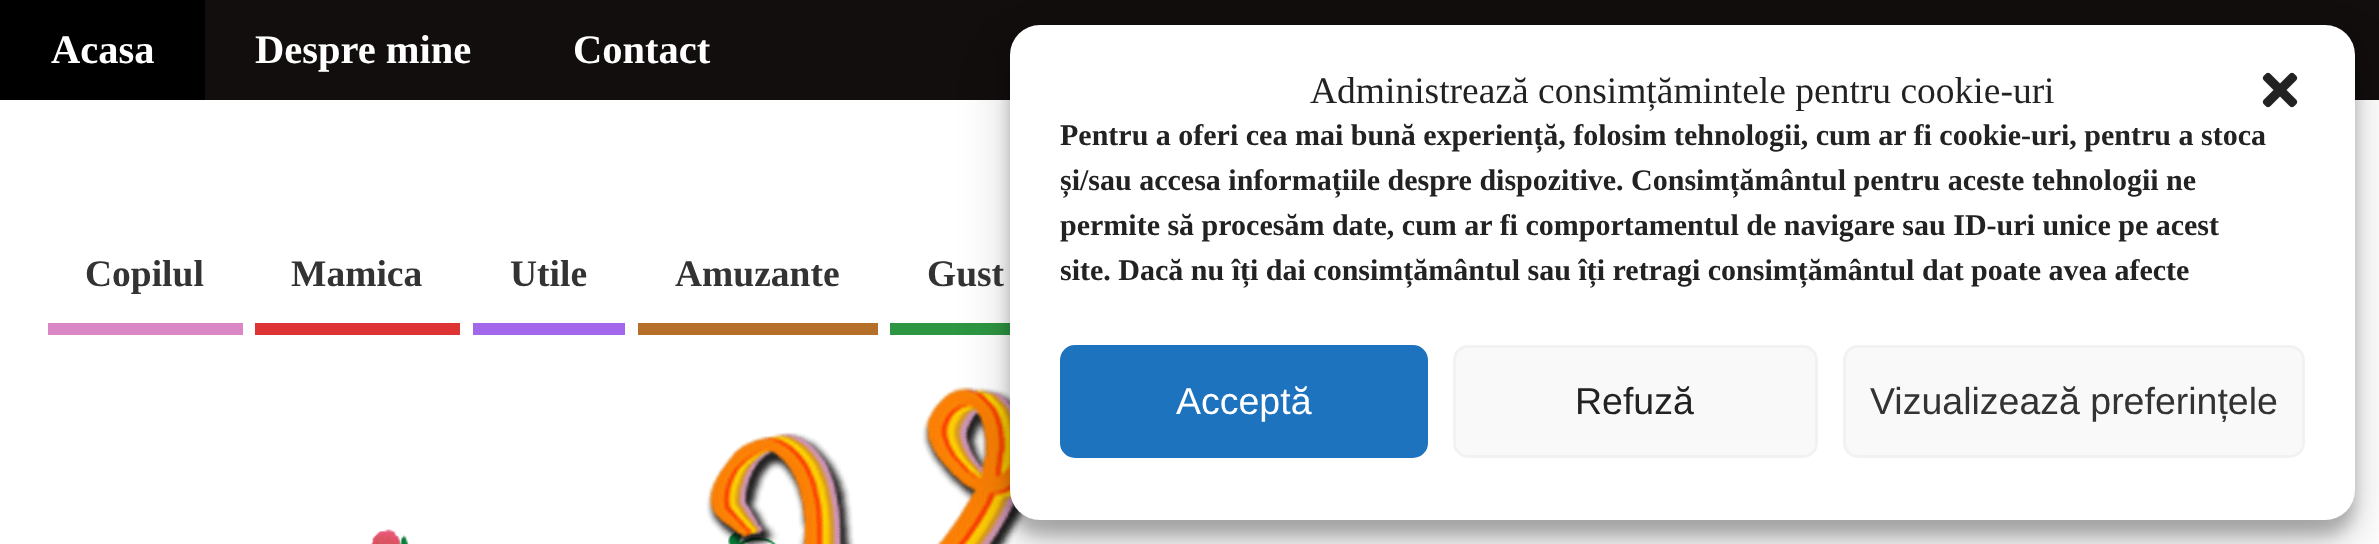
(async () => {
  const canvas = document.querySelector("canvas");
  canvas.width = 2379;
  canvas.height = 544;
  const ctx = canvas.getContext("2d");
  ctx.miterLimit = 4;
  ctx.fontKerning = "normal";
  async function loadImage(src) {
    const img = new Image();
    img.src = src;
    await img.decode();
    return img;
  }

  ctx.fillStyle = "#ffffff";
  ctx.fillRect(0, 0, 2379, 544);
  for (const [x, y, w, h, color] of [
    [205, 0, 2174, 100, "#110e0d"],
    [0, 0, 205, 100, "#000000"],
    [48, 323, 195, 12, "#db87c5"],
    [255, 323, 205, 12, "#dd3333"],
    [473, 323, 152, 12, "#a267ea"],
    [638, 323, 240, 12, "#b56f29"],
    [890, 323, 120, 12, "#2d9642"],
  ]) {
    ctx.fillStyle = color;
    ctx.fillRect(x, y, w, h);
  }
  ctx.drawImage(await loadImage("img/1.png"), 371, 386, 656, 158);
  ctx.fillStyle = "rgba(0, 0, 0, 0.23)";
  ctx.filter = "blur(7.5px)";
  ctx.beginPath();
  ctx.roundRect(1010, 40, 1345, 495, 30);
  ctx.fill();
  ctx.filter = "none";
  ctx.fillStyle = "rgba(0, 0, 0, 0.19)";
  ctx.filter = "blur(25px)";
  ctx.beginPath();
  ctx.roundRect(1010, 50, 1345, 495, 30);
  ctx.fill();
  ctx.filter = "none";
  ctx.fillStyle = "#ffffff";
  ctx.beginPath();
  ctx.roundRect(1010, 25, 1345, 495, 30);
  ctx.fill();
  ctx.drawImage(await loadImage("img/2.png"), 2262, 72, 36, 36);
  ctx.fillStyle = "#1e73be";
  ctx.beginPath();
  ctx.roundRect(1061.5, 346.5, 365, 110, 13.5);
  ctx.fill();
  ctx.strokeStyle = "#1e73be";
  ctx.lineWidth = 3;
  ctx.stroke();
  ctx.fillStyle = "#f9f9f9";
  ctx.beginPath();
  ctx.roundRect(1454.5, 346.5, 362, 110, 13.5);
  ctx.fill();
  ctx.strokeStyle = "#f2f2f2";
  ctx.stroke();
  ctx.beginPath();
  ctx.roundRect(1844.5, 346.5, 459, 110, 13.5);
  ctx.fill();
  ctx.stroke();
  ctx.font = "bold 40.5px Liberation Serif";
  ctx.fillStyle = "#ffffff";
  for (const [text, x, y] of [
    ["Acasa", 51, 63],
    ["Despre mine", 255, 63],
    ["Contact", 573, 63],
  ]) {
    ctx.fillText(text, x, y);
  }
  ctx.font = "bold 37.5px Liberation Serif";
  ctx.fillStyle = "#333333";
  for (const [text, x, y] of [
    ["Copilul", 85, 286],
    ["Mamica", 291, 286],
    ["Utile", 510, 286],
    ["Amuzante", 675, 286],
    ["Gust", 927, 286],
  ]) {
    ctx.fillText(text, x, y);
  }
  ctx.font = "37.5px Liberation Serif";
  ctx.fillStyle = "#222222";
  ctx.fillText("Administrează consimțămintele pentru cookie-uri", 1310, 103);
  ctx.font = "bold 30px Liberation Serif";
  for (const [text, x, y] of [
    ["Pentru a oferi cea mai bună experiență, folosim tehnologii, cum ar fi cookie-uri, pentru a stoca", 1060, 145],
    ["și/sau accesa informațiile despre dispozitive. Consimțământul pentru aceste tehnologii ne", 1060, 190],
    ["permite să procesăm date, cum ar fi comportamentul de navigare sau ID-uri unice pe acest", 1060, 235],
    ["site. Dacă nu îți dai consimțământul sau îți retragi consimțământul dat poate avea afecte", 1060, 280],
  ]) {
    ctx.fillText(text, x, y);
  }
  ctx.font = "37.5px Liberation Sans";
  ctx.fillStyle = "#ffffff";
  ctx.fillText("Acceptă", 1176, 414);
  ctx.fillStyle = "#222222";
  ctx.fillText("Refuză", 1575, 414);
  ctx.fillStyle = "#333333";
  ctx.fillText("Vizualizează preferințele", 1870, 414);
})();
